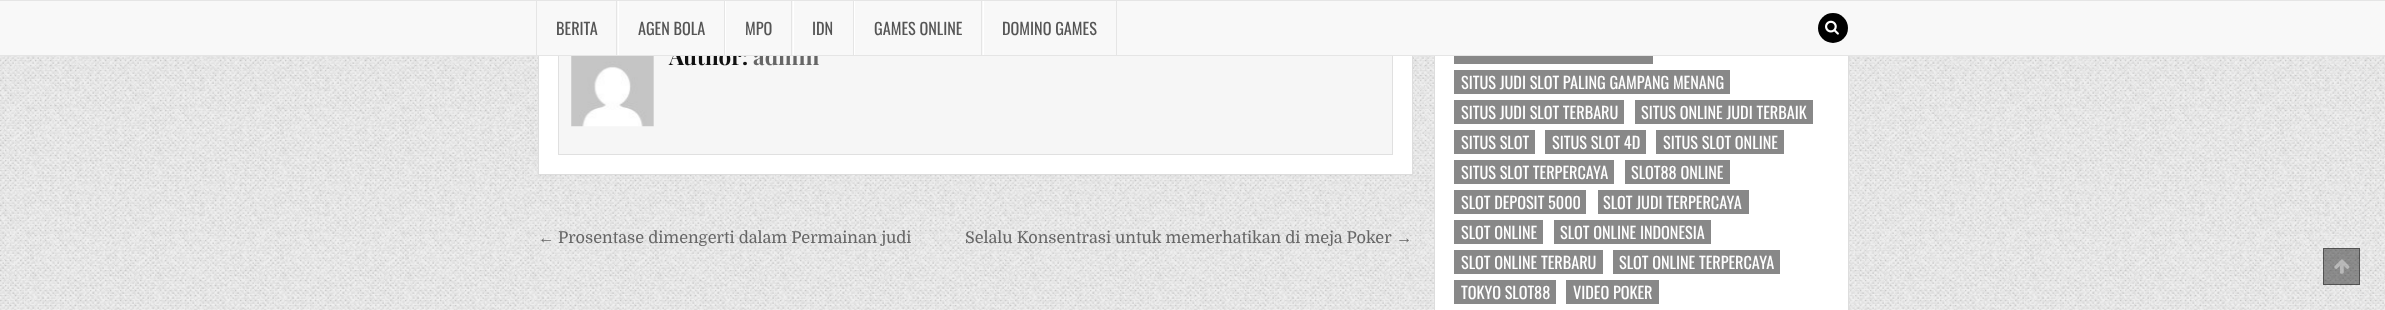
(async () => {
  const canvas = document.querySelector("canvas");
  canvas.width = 2385;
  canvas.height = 310;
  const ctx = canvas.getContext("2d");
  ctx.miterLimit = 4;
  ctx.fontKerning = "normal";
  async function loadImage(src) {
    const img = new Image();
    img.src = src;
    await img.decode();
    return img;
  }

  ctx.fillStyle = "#ffffff";
  ctx.fillRect(0, 0, 2385, 310);
  ctx.drawImage(await loadImage("img/1.png"), 0, 56, 2385, 254);
  ctx.fillRect(539, 56, 873, 118);
  ctx.strokeStyle = "#dddddd";
  ctx.strokeRect(538.5, -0.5, 874, 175);
  ctx.fillRect(1435, 56, 413, 254);
  ctx.strokeRect(1434.5, -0.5, 414, 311);
  ctx.fillStyle = "#e5e5e5";
  ctx.fillRect(0, 0, 2385, 1);
  ctx.fillStyle = "#f6f6f6";
  ctx.fillRect(559, 56, 833, 98);
  ctx.strokeStyle = "#e0e0e0";
  ctx.strokeRect(558.5, 31.5, 834, 123);
  ctx.drawImage(await loadImage("img/3.png"), 571, 56, 83, 71);
  for (const [x, y, w, h, color] of [
    [1454, 56, 199, 8, "#888888"],
    [1454, 70, 276, 24, "#888888"],
    [1454, 100, 170, 24, "#888888"],
    [1635, 100, 178, 24, "#888888"],
    [1454, 130, 81, 24, "#888888"],
    [1545, 130, 101, 24, "#888888"],
    [1656, 130, 128, 24, "#888888"],
    [1454, 160, 160, 24, "#888888"],
    [1625, 160, 105, 24, "#888888"],
    [1454, 190, 132, 24, "#888888"],
    [1598, 190, 151, 24, "#888888"],
    [1454, 220, 89, 24, "#888888"],
    [1554, 220, 157, 24, "#888888"],
    [1454, 250, 149, 24, "#888888"],
    [1613, 250, 167, 24, "#888888"],
    [1454, 280, 102, 24, "#888888"],
    [1566, 280, 93, 24, "#888888"],
    [2323, 248, 37, 37, "rgba(0, 0, 0, 0.4)"],
  ]) {
    ctx.fillStyle = color;
    ctx.fillRect(x, y, w, h);
  }
  ctx.strokeStyle = "rgba(0, 0, 0, 0.4)";
  ctx.strokeRect(2323.5, 248.5, 36, 36);
  ctx.drawImage(await loadImage("img/4.png"), 2334, 259, 16, 15);
  ctx.font = "bold 22.5px Playfair Display";
  ctx.fillStyle = "#111111";
  ctx.fillText("Author:", 669, 65);
  ctx.fillStyle = "#666666";
  ctx.fillText("admin", 753, 65);
  ctx.fillStyle = "#f8f8f8";
  ctx.fillRect(0, 1, 2385, 54);
  ctx.fillStyle = "#000000";
  ctx.beginPath();
  ctx.arc(1833, 28, 15, 0, Math.PI * 2);
  ctx.fill();
  ctx.drawImage(await loadImage("img/2.png"), 1825, 20, 14, 15);
  ctx.font = "16.25px Oswald";
  ctx.fillStyle = "#555555";
  ctx.fillText("DOMINO GAMES", 1002, 35);
  ctx.fillStyle = "#ffffff";
  ctx.fillRect(983, 1, 1, 54);
  ctx.fillStyle = "#e5e5e5";
  ctx.fillRect(1116, 1, 1, 54);
  ctx.fillStyle = "#555555";
  ctx.fillText("GAMES ONLINE", 874, 35);
  ctx.fillStyle = "#ffffff";
  ctx.fillRect(854, 1, 1, 54);
  ctx.fillStyle = "#e5e5e5";
  ctx.fillRect(981, 1, 1, 54);
  ctx.fillStyle = "#555555";
  ctx.fillText("IDN", 812, 35);
  ctx.fillStyle = "#ffffff";
  ctx.fillRect(793, 1, 1, 54);
  ctx.fillStyle = "#e5e5e5";
  ctx.fillRect(853, 1, 1, 54);
  ctx.fillStyle = "#555555";
  ctx.fillText("MPO", 745, 35);
  ctx.fillStyle = "#ffffff";
  ctx.fillRect(725, 1, 1, 54);
  ctx.fillStyle = "#e5e5e5";
  ctx.fillRect(791, 1, 1, 54);
  ctx.fillStyle = "#555555";
  ctx.fillText("AGEN BOLA", 638, 35);
  ctx.fillStyle = "#ffffff";
  ctx.fillRect(618, 1, 1, 54);
  ctx.fillStyle = "#e5e5e5";
  ctx.fillRect(724, 1, 1, 54);
  ctx.fillStyle = "#555555";
  ctx.fillText("BERITA", 556, 35);
  for (const [x, y, w, h, color] of [
    [536, 1, 1, 54, "#e5e5e5"],
    [616, 1, 1, 54, "#e5e5e5"],
    [0, 55, 2385, 1, "#e5e5e5"],
  ]) {
    ctx.fillStyle = color;
    ctx.fillRect(x, y, w, h);
  }
  ctx.font = "16.25px Liberation Sans";
  ctx.fillStyle = "#666666";
  ctx.fillText("←", 538, 243);
  ctx.font = "16.25px Domine";
  ctx.fillText("Prosentase dimengerti dalam Permainan judi", 558, 243);
  ctx.fillText("Selalu Konsentrasi untuk memerhatikan di meja Poker", 965, 243);
  ctx.font = "16.25px Liberation Sans";
  ctx.fillText("→", 1396, 243);
  ctx.font = "16.25px Oswald";
  ctx.fillStyle = "#ffffff";
  for (const [text, x, y] of [
    ["SITUS JUDI SLOT PALING GAMPANG MENANG", 1461, 89],
    ["SITUS JUDI SLOT TERBARU", 1461, 119],
    ["SITUS ONLINE JUDI TERBAIK", 1641, 119],
    ["SITUS SLOT", 1461, 149],
    ["SITUS SLOT 4D", 1552, 149],
    ["SITUS SLOT ONLINE", 1663, 149],
    ["SITUS SLOT TERPERCAYA", 1461, 179],
    ["SLOT88 ONLINE", 1631, 179],
    ["SLOT DEPOSIT 5000", 1461, 209],
    ["SLOT JUDI TERPERCAYA", 1603, 209],
    ["SLOT ONLINE", 1461, 239],
    ["SLOT ONLINE INDONESIA", 1560, 239],
    ["SLOT ONLINE TERBARU", 1461, 269],
    ["SLOT ONLINE TERPERCAYA", 1619, 269],
    ["TOKYO SLOT88", 1461, 299],
    ["VIDEO POKER", 1573, 299],
  ]) {
    ctx.fillText(text, x, y);
  }
})();
